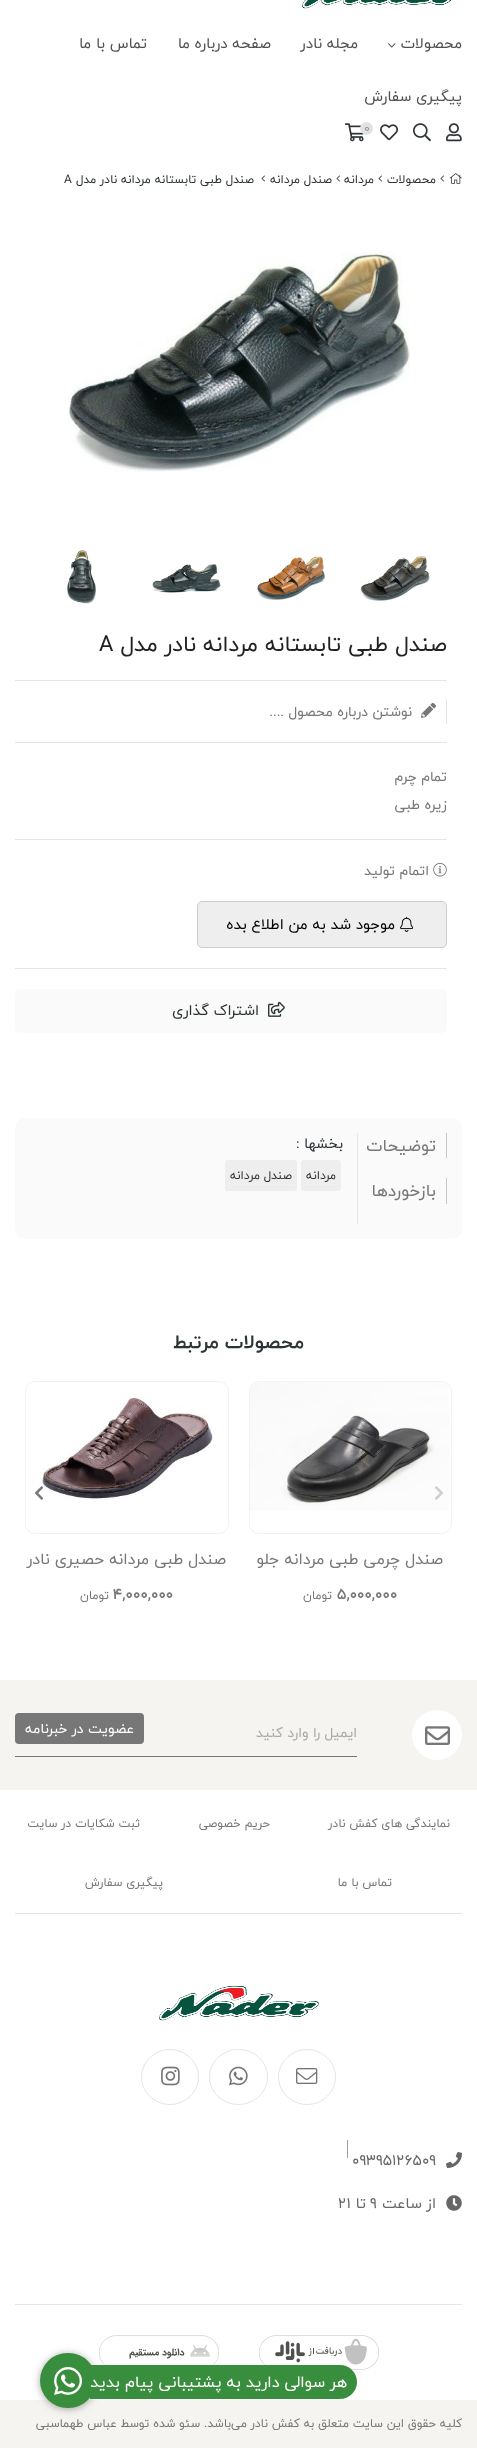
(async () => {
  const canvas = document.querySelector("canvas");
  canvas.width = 477;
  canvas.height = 2448;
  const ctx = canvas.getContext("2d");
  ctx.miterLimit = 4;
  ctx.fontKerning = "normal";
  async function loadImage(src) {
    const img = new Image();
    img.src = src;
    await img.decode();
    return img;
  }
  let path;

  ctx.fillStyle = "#ffffff";
  ctx.fillRect(0, 0, 477, 2448);
  ctx.drawImage(await loadImage("img/1.png"), 302, 0, 150, 9);
  ctx.drawImage(await loadImage("img/2.png"), 388, 43, 8, 5);
  ctx.drawImage(await loadImage("img/3.png"), 446, 123, 16, 19);
  ctx.drawImage(await loadImage("img/4.png"), 413, 123, 18, 19);
  ctx.drawImage(await loadImage("img/5.png"), 380, 124, 18, 17);
  ctx.drawImage(await loadImage("img/6.png"), 345, 123, 19, 19);
  ctx.fillStyle = "#e2e2e2";
  ctx.beginPath();
  ctx.arc(366.5, 128.5, 6.5, 0, Math.PI * 2);
  ctx.fill();
  ctx.drawImage(await loadImage("img/7.png"), 449, 173, 13, 11);
  ctx.drawImage(await loadImage("img/8.png"), 440, 175, 4, 7);
  ctx.drawImage(await loadImage("img/8.png"), 378, 175, 4, 7);
  ctx.drawImage(await loadImage("img/8.png"), 336, 175, 4, 7);
  ctx.drawImage(await loadImage("img/8.png"), 261, 175, 4, 7);
  ctx.drawImage(await loadImage("img/9.png"), 68, 252, 342, 220);
  ctx.drawImage(await loadImage("img/10.png"), 360, 556, 70, 45);
  ctx.drawImage(await loadImage("img/11.png"), 257, 555, 68, 45);
  ctx.drawImage(await loadImage("img/12.png"), 152, 564, 69, 29);
  ctx.drawImage(await loadImage("img/13.png"), 67, 550, 29, 54);
  for (const [x, y, w, h, color] of [
    [15, 680, 432, 1, "#e5e5e5"],
    [15, 742, 432, 1, "#e5e5e5"],
    [446, 699, 1, 25, "#e5e5e5"],
  ]) {
    ctx.fillStyle = color;
    ctx.fillRect(x, y, w, h);
  }
  ctx.drawImage(await loadImage("img/14.png"), 421, 702, 15, 16);
  ctx.fillRect(15, 839, 432, 1);
  ctx.fillRect(15, 968, 432, 1);
  ctx.drawImage(await loadImage("img/15.png"), 433, 863, 14, 14);
  ctx.fillStyle = "#eeeeee";
  ctx.beginPath();
  ctx.roundRect(197.5, 901.5, 249, 46, 4.5);
  ctx.fill();
  ctx.strokeStyle = "#cccccc";
  ctx.stroke();
  ctx.drawImage(await loadImage("img/16.png"), 400, 916, 14, 16);
  ctx.fillStyle = "#fafafa";
  ctx.beginPath();
  ctx.roundRect(15, 989, 432, 44, 5);
  ctx.fill();
  ctx.drawImage(await loadImage("img/17.png"), 268, 1001, 17, 16);
  ctx.beginPath();
  ctx.roundRect(15, 1118, 447, 121, 10);
  ctx.fill();
  for (const [x, y, w, h, color] of [
    [446, 1133, 1, 25, "#c6c6c6"],
    [446, 1178, 1, 26, "#c6c6c6"],
    [357, 1133, 1, 91, "#e8e8e8"],
  ]) {
    ctx.fillStyle = color;
    ctx.fillRect(x, y, w, h);
  }
  ctx.fillStyle = "#eeeeee";
  ctx.beginPath();
  ctx.roundRect(301, 1160, 40, 31, 3);
  ctx.fill();
  ctx.beginPath();
  ctx.roundRect(225, 1160, 72, 31, 3);
  ctx.fill();
  ctx.beginPath();
  ctx.roundRect(249.5, 1381.5, 202, 152, 9.5);
  ctx.strokeStyle = "#f2f2f2";
  ctx.stroke();
  ctx.drawImage(await loadImage("img/20.png"), 250, 1382, 200, 129);
  ctx.drawImage(await loadImage("img/18.png"), 435, 1486, 8, 14);
  ctx.beginPath();
  ctx.roundRect(25.5, 1381.5, 203, 152, 9.5);
  ctx.stroke();
  ctx.drawImage(await loadImage("img/21.png"), 41, 1398, 173, 102);
  ctx.drawImage(await loadImage("img/19.png"), 35, 1486, 9, 14);
  ctx.fillStyle = "#f5f4f0";
  ctx.fillRect(0, 1680, 477, 110);
  ctx.fillStyle = "#ffffff";
  ctx.beginPath();
  ctx.arc(437, 1735, 25, 0, Math.PI * 2);
  ctx.fill();
  ctx.drawImage(await loadImage("img/22.png"), 425, 1726, 25, 19);
  ctx.fillStyle = "#777777";
  ctx.fillRect(15, 1756, 342, 1);
  ctx.beginPath();
  ctx.roundRect(15, 1713, 129, 31, 4);
  ctx.fill();
  ctx.fillStyle = "#e5e5e5";
  ctx.fillRect(15, 1913, 447, 1);
  ctx.drawImage(await loadImage("img/23.png"), 159, 1985, 160, 36);
  path = new Path2D("M307 2049.5C322.5 2049.5 335.5 2062 335.5 2077C335.5 2092 322.5 2104.5 307 2104.5C291.5 2104.5 278.5 2092 278.5 2077C278.5 2062 291.5 2049.5 307 2049.5Z");
  ctx.strokeStyle = "#e5e5e5";
  ctx.stroke(path);
  ctx.drawImage(await loadImage("img/24.png"), 296, 2068, 22, 16);
  path = new Path2D("M238.5 2049.5C254.5 2049.5 267.5 2062 267.5 2077C267.5 2092 254.5 2104.5 238.5 2104.5C222.5 2104.5 209.5 2092 209.5 2077C209.5 2062 222.5 2049.5 238.5 2049.5Z");
  ctx.stroke(path);
  ctx.drawImage(await loadImage("img/25.png"), 229, 2066, 19, 20);
  path = new Path2D("M170 2049.5C185.5 2049.5 198.5 2062 198.5 2077C198.5 2092 185.5 2104.5 170 2104.5C154.5 2104.5 141.5 2092 141.5 2077C141.5 2062 154.5 2049.5 170 2049.5Z");
  ctx.stroke(path);
  ctx.drawImage(await loadImage("img/26.png"), 161, 2066, 19, 20);
  ctx.fillStyle = "#a19e9e";
  ctx.fillRect(347, 2140, 1, 18);
  ctx.drawImage(await loadImage("img/27.png"), 446, 2152, 16, 16);
  ctx.drawImage(await loadImage("img/28.png"), 446, 2195, 16, 16);
  ctx.fillStyle = "#e5e5e5";
  ctx.fillRect(15, 2304, 447, 1);
  ctx.drawImage(await loadImage("img/29.png"), 259, 2335, 120, 35);
  ctx.drawImage(await loadImage("img/30.png"), 99, 2335, 120, 30);
  ctx.fillStyle = "#f5f4f0";
  ctx.fillRect(0, 2400, 477, 48);
  ctx.fillStyle = "rgba(0, 0, 0, 0.15)";
  ctx.filter = "blur(5px)";
  ctx.beginPath();
  ctx.roundRect(40, 2354, 56, 55, 27.5);
  ctx.fill();
  ctx.filter = "none";
  ctx.fillStyle = "rgba(0, 0, 0, 0.2)";
  ctx.filter = "blur(3px)";
  ctx.beginPath();
  ctx.roundRect(40, 2354, 56, 55, 27.5);
  ctx.fill();
  ctx.filter = "none";
  ctx.fillStyle = "#388e3c";
  ctx.beginPath();
  ctx.roundRect(40, 2353, 56, 55, 27.5);
  ctx.fill();
  ctx.beginPath();
  ctx.roundRect(90, 2365, 267, 34, [0, 17, 17, 0]);
  ctx.fill();
  ctx.drawImage(await loadImage("img/31.png"), 54, 2367, 28, 28);
  ctx.direction = "rtl";
  ctx.font = "15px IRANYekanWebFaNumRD";
  ctx.fillStyle = "#505050";
  for (const [text, x, y] of [
    ["محصولات", 462, 48],
    ["مجله نادر", 358, 48],
    ["صفحه درباره ما", 271, 48],
    ["تماس با ما", 147, 48],
    ["پیگیری سفارش", 462, 101],
  ]) {
    ctx.fillText(text, x, y);
  }
  ctx.direction = "ltr";
  ctx.font = "12px IRANYekanWebFaNumRD";
  ctx.fillStyle = "#989898";
  ctx.fillText("0", 364, 132);
  ctx.direction = "rtl";
  ctx.fillStyle = "#333333";
  for (const [text, x, y] of [
    ["محصولات", 436, 183],
    ["مردانه", 374, 183],
    ["صندل مردانه", 332, 183],
  ]) {
    ctx.fillText(text, x, y);
  }
  ctx.fillStyle = "#2d3436";
  ctx.fillText("صندل طبی تابستانه مردانه نادر مدل", 254, 183);
  ctx.direction = "ltr";
  ctx.fillText("A", 64, 183);
  ctx.direction = "rtl";
  ctx.font = "22px IRANYekanWebFaNumRD";
  ctx.fillStyle = "#222222";
  ctx.fillText("صندل طبی تابستانه مردانه نادر مدل", 447, 651);
  ctx.direction = "ltr";
  ctx.fillText("A", 99, 651);
  ctx.direction = "rtl";
  ctx.font = "14px IRANYekanWebFaNumRD";
  ctx.fillStyle = "#777777";
  for (const [text, x, y] of [
    ["نوشتن درباره محصول ....", 412, 716],
    ["تمام چرم", 447, 781],
    ["زیره طبی", 447, 809],
    ["اتمام تولید", 429, 875],
  ]) {
    ctx.fillText(text, x, y);
  }
  ctx.font = "15px IRANYekanWebFaNumRD";
  ctx.fillStyle = "#000000";
  ctx.fillText("موجود شد به من اطلاع بده", 395, 929);
  ctx.fillStyle = "#2d3436";
  ctx.fillText("اشتراک گذاری", 259, 1015);
  ctx.font = "17px IRANYekanWebFaNumRD";
  ctx.fillStyle = "#777777";
  ctx.fillText("توضیحات", 436, 1151);
  ctx.fillText("بازخوردها", 436, 1196);
  ctx.font = "14.5px IRANYekanWebFaNumRD";
  ctx.fillStyle = "#2d3436";
  ctx.fillText("بخشها :", 343, 1148);
  ctx.font = "12px IRANYekanWebFaNumRD";
  ctx.fillStyle = "#333333";
  ctx.fillText("مردانه", 336, 1179);
  ctx.fillText("صندل مردانه", 292, 1179);
  ctx.font = "bold 19.25px IRANYekanWebFaNumRD";
  ctx.fillStyle = "#2d3436";
  ctx.fillText("محصولات مرتبط", 304, 1348);
  ctx.font = "16px IRANYekanWebFaNumRD";
  ctx.fillStyle = "#777777";
  ctx.fillText("صندل چرمی طبی مردانه جلو", 443, 1564);
  ctx.direction = "ltr";
  ctx.font = "bold 15px IRANYekanWebFaNumRD";
  ctx.fillText("5,000,000", 337, 1599);
  ctx.direction = "rtl";
  ctx.font = "12px IRANYekanWebFaNumRD";
  ctx.fillText("تومان", 332, 1599);
  ctx.font = "16px IRANYekanWebFaNumRD";
  ctx.fillText("صندل طبی مردانه حصیری نادر", 226, 1564);
  ctx.direction = "ltr";
  ctx.font = "bold 15px IRANYekanWebFaNumRD";
  ctx.fillText("4,000,000", 113, 1599);
  ctx.direction = "rtl";
  ctx.font = "12px IRANYekanWebFaNumRD";
  ctx.fillText("تومان", 109, 1599);
  ctx.font = "14px IRANYekanWebFaNumRD";
  ctx.fillStyle = "#aaaaaa";
  ctx.fillText("ایمیل را وارد کنید", 357, 1737);
  ctx.fillStyle = "#ffffff";
  ctx.fillText("عضویت در خبرنامه", 134, 1733);
  ctx.font = "12px IRANYekanWebFaNumRD";
  ctx.fillStyle = "#777777";
  for (const [text, x, y] of [
    ["نمایندگی های کفش نادر", 450, 1827],
    ["حریم خصوصی", 270, 1827],
    ["ثبت شکایات در سایت", 140, 1827],
    ["تماس با ما", 392, 1886],
    ["پیگیری سفارش", 163, 1886],
  ]) {
    ctx.fillText(text, x, y);
  }
  ctx.direction = "ltr";
  ctx.font = "15px IRANYekanWebFaNumRD";
  ctx.fillStyle = "#666666";
  ctx.fillText("09395126509", 352, 2165);
  ctx.direction = "rtl";
  ctx.fillText("از ساعت", 436, 2208);
  ctx.direction = "ltr";
  ctx.fillText("9", 370, 2208);
  ctx.direction = "rtl";
  ctx.fillText("تا", 366, 2208);
  ctx.direction = "ltr";
  ctx.fillText("21", 338, 2208);
  ctx.direction = "rtl";
  ctx.font = "12px IRANYekanWebFaNumRD";
  ctx.fillStyle = "#777777";
  ctx.fillText("کلیه حقوق این سایت متعلق به کفش نادر می‌باشد. سئو شده توسط عباس طهماسبی", 462, 2427);
  ctx.font = "16px IRANYekanWebFaNumRD";
  ctx.fillStyle = "#ffffff";
  ctx.fillText("هر سوالی دارید به پشتیبانی پیام بدید", 347, 2387);
})();
